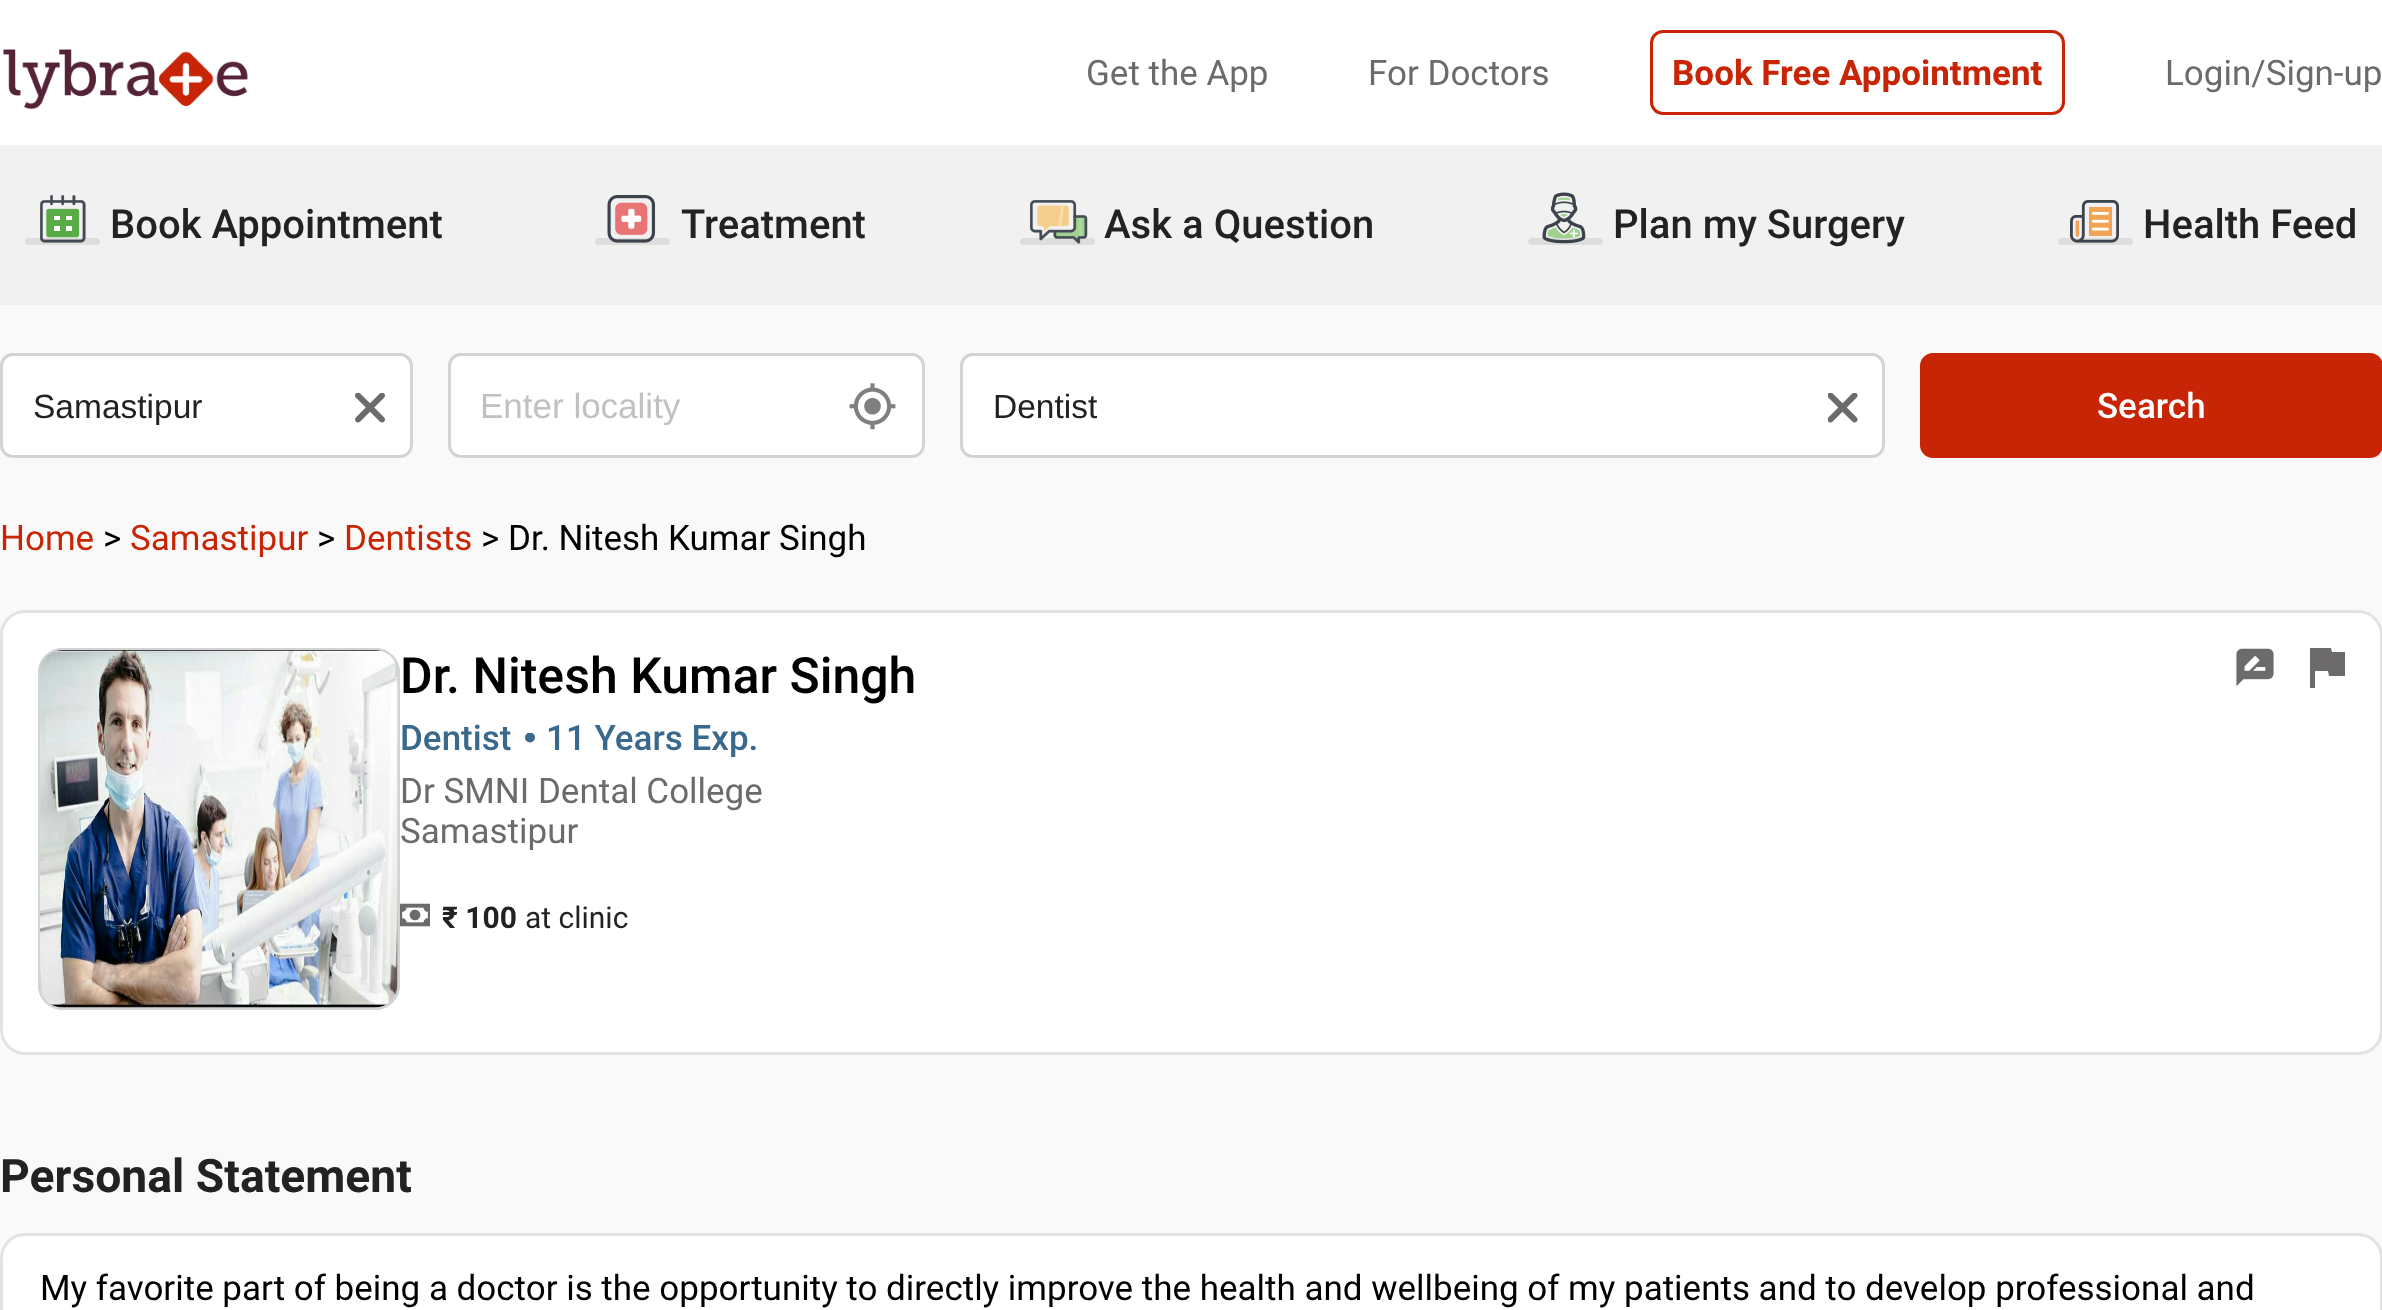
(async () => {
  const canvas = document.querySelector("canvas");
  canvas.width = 2382;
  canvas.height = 1310;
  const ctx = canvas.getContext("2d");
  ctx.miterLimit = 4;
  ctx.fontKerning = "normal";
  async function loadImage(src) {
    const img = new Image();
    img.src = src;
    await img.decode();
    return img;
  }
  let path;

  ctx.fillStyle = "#eeeeee";
  ctx.fillRect(0, 0, 2382, 1310);
  ctx.fillStyle = "#ffffff";
  ctx.fillRect(0, 0, 2382, 145);
  ctx.drawImage(await loadImage("img/1.png"), 3, 49, 245, 61);
  ctx.beginPath();
  ctx.roundRect(1651.5, 31.5, 412, 82, 11.5);
  ctx.strokeStyle = "#c82506";
  ctx.lineWidth = 3;
  ctx.stroke();
  ctx.fillStyle = "#f1f1f1";
  ctx.fillRect(0, 145, 2382, 158);
  ctx.drawImage(await loadImage("img/2.png"), 25, 195, 75, 50);
  ctx.drawImage(await loadImage("img/3.png"), 595, 195, 75, 50);
  ctx.drawImage(await loadImage("img/4.png"), 1020, 200, 75, 45);
  ctx.drawImage(await loadImage("img/5.png"), 1528, 192, 75, 53);
  ctx.drawImage(await loadImage("img/6.png"), 2058, 200, 75, 45);
  ctx.fillStyle = "#f9f9f9";
  ctx.fillRect(0, 305, 2382, 953);
  ctx.fillStyle = "#ffffff";
  ctx.beginPath();
  ctx.roundRect(1.5, 354.5, 410, 102, 11.5);
  ctx.fill();
  ctx.strokeStyle = "#d3d3d3";
  ctx.stroke();
  ctx.drawImage(await loadImage("img/7.png"), 355, 393, 30, 30);
  ctx.beginPath();
  ctx.roundRect(449.5, 354.5, 474, 102, 11.5);
  ctx.fill();
  ctx.stroke();
  ctx.drawImage(await loadImage("img/8.png"), 849, 383, 47, 47);
  ctx.beginPath();
  ctx.roundRect(961.5, 354.5, 922, 102, 11.5);
  ctx.fill();
  ctx.stroke();
  ctx.drawImage(await loadImage("img/9.png"), 1828, 393, 30, 30);
  ctx.fillStyle = "#c82506";
  ctx.beginPath();
  ctx.roundRect(1921.5, 354.5, 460, 102, 11.5);
  ctx.fill();
  ctx.strokeStyle = "#c82506";
  ctx.stroke();
  ctx.fillStyle = "#ffffff";
  ctx.beginPath();
  ctx.roundRect(1.5, 611.5, 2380, 442, 23.5);
  ctx.fill();
  ctx.strokeStyle = "#e3e3e3";
  ctx.stroke();
  ctx.beginPath();
  ctx.roundRect(39.5, 649.5, 359, 359, 23.5);
  ctx.strokeStyle = "#d3d3d3";
  ctx.stroke();
  ctx.beginPath();
  ctx.roundRect(39.5, 649.5, 359, 359, 23.5);
  ctx.stroke();
  ctx.drawImage(await loadImage("img/10.png"), 40, 650, 358, 358);
  ctx.drawImage(await loadImage("img/11.png"), 2236, 648, 38, 39);
  ctx.fillStyle = "#6c6a6a";
  path = new Path2D("M2332 652L2331 648H2310V688H2315V671H2328L2329 676H2345V652Z");
  ctx.fill(path);
  ctx.save();
  ctx.beginPath();
  ctx.rect(525, 733, 10, 10);
  ctx.clip();
  ctx.fillStyle = "#3a698e";
  ctx.beginPath();
  ctx.arc(530, 737.5, 5, 0, Math.PI * 2);
  ctx.fill();
  ctx.restore();
  ctx.drawImage(await loadImage("img/12.png"), 400, 903, 30, 24);
  ctx.fillStyle = "#ffffff";
  ctx.beginPath();
  ctx.roundRect(1.5, 1234.5, 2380, 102, 23.5);
  ctx.fill();
  ctx.strokeStyle = "#e3e3e3";
  ctx.stroke();
  ctx.font = "35px Roboto";
  ctx.fillStyle = "#6c6a6a";
  ctx.fillText("Get the App", 1086, 85);
  ctx.fillText("For Doctors", 1368, 85);
  ctx.font = "bold 35px Roboto";
  ctx.fillStyle = "#c82506";
  ctx.fillText("Book Free Appointment", 1672, 85);
  ctx.font = "35px Roboto";
  ctx.fillStyle = "#6c6a6a";
  ctx.fillText("Login/Sign-up", 2165, 85);
  ctx.font = "500 40px Roboto";
  ctx.fillStyle = "#222222";
  for (const [text, x, y] of [
    ["Book Appointment", 110, 238],
    ["Treatment", 681, 238],
    ["Ask a Question", 1104, 238],
    ["Plan my Surgery", 1613, 238],
    ["Health Feed", 2143, 238],
  ]) {
    ctx.fillText(text, x, y);
  }
  ctx.font = "33.5px Liberation Sans";
  ctx.fillText("Samastipur", 33, 418);
  ctx.save();
  ctx.beginPath();
  ctx.rect(480, 388, 413, 37);
  ctx.clip();
  ctx.font = "35px Liberation Sans";
  ctx.fillStyle = "#c1c1c1";
  ctx.fillText("Enter locality", 480, 418);
  ctx.restore();
  ctx.fillText("Dentist", 993, 418);
  ctx.font = "500 35px Roboto";
  ctx.fillStyle = "#ffffff";
  ctx.fillText("Search", 2097, 418);
  ctx.font = "35px Roboto";
  ctx.fillStyle = "#c82506";
  ctx.fillText("Home", 0, 550);
  ctx.fillStyle = "#000000";
  ctx.fillText(">", 103, 550);
  ctx.fillStyle = "#c82506";
  ctx.fillText("Samastipur", 130, 550);
  ctx.fillStyle = "#000000";
  ctx.fillText(">", 317, 550);
  ctx.fillStyle = "#c82506";
  ctx.fillText("Dentists", 344, 550);
  ctx.fillStyle = "#000000";
  ctx.fillText("> Dr. Nitesh Kumar Singh", 481, 550);
  ctx.font = "500 50px Roboto";
  ctx.fillText("Dr. Nitesh Kumar Singh", 400, 693);
  ctx.font = "500 35px Roboto";
  ctx.fillStyle = "#3a698e";
  ctx.fillText("Dentist", 400, 750);
  ctx.fillText("11 Years Exp.", 546, 750);
  ctx.font = "35px Roboto";
  ctx.fillStyle = "#6c6a6a";
  ctx.fillText("Dr SMNI Dental College", 400, 803);
  ctx.fillText("Samastipur", 400, 843);
  ctx.font = "bold 30px Roboto";
  ctx.fillStyle = "#222222";
  ctx.fillText("₹ 100", 442, 928);
  ctx.font = "30px Roboto";
  ctx.fillText("at clinic", 525, 928);
  ctx.font = "bold 46.25px Roboto";
  ctx.fillText("Personal Statement", 0, 1192);
  ctx.font = "35px Roboto";
  ctx.fillStyle = "#000000";
  ctx.fillText("My favorite part of being a doctor is the opportunity to directly improve the health and wellbeing of my patients and to develop professional and", 40, 1300);
})();
